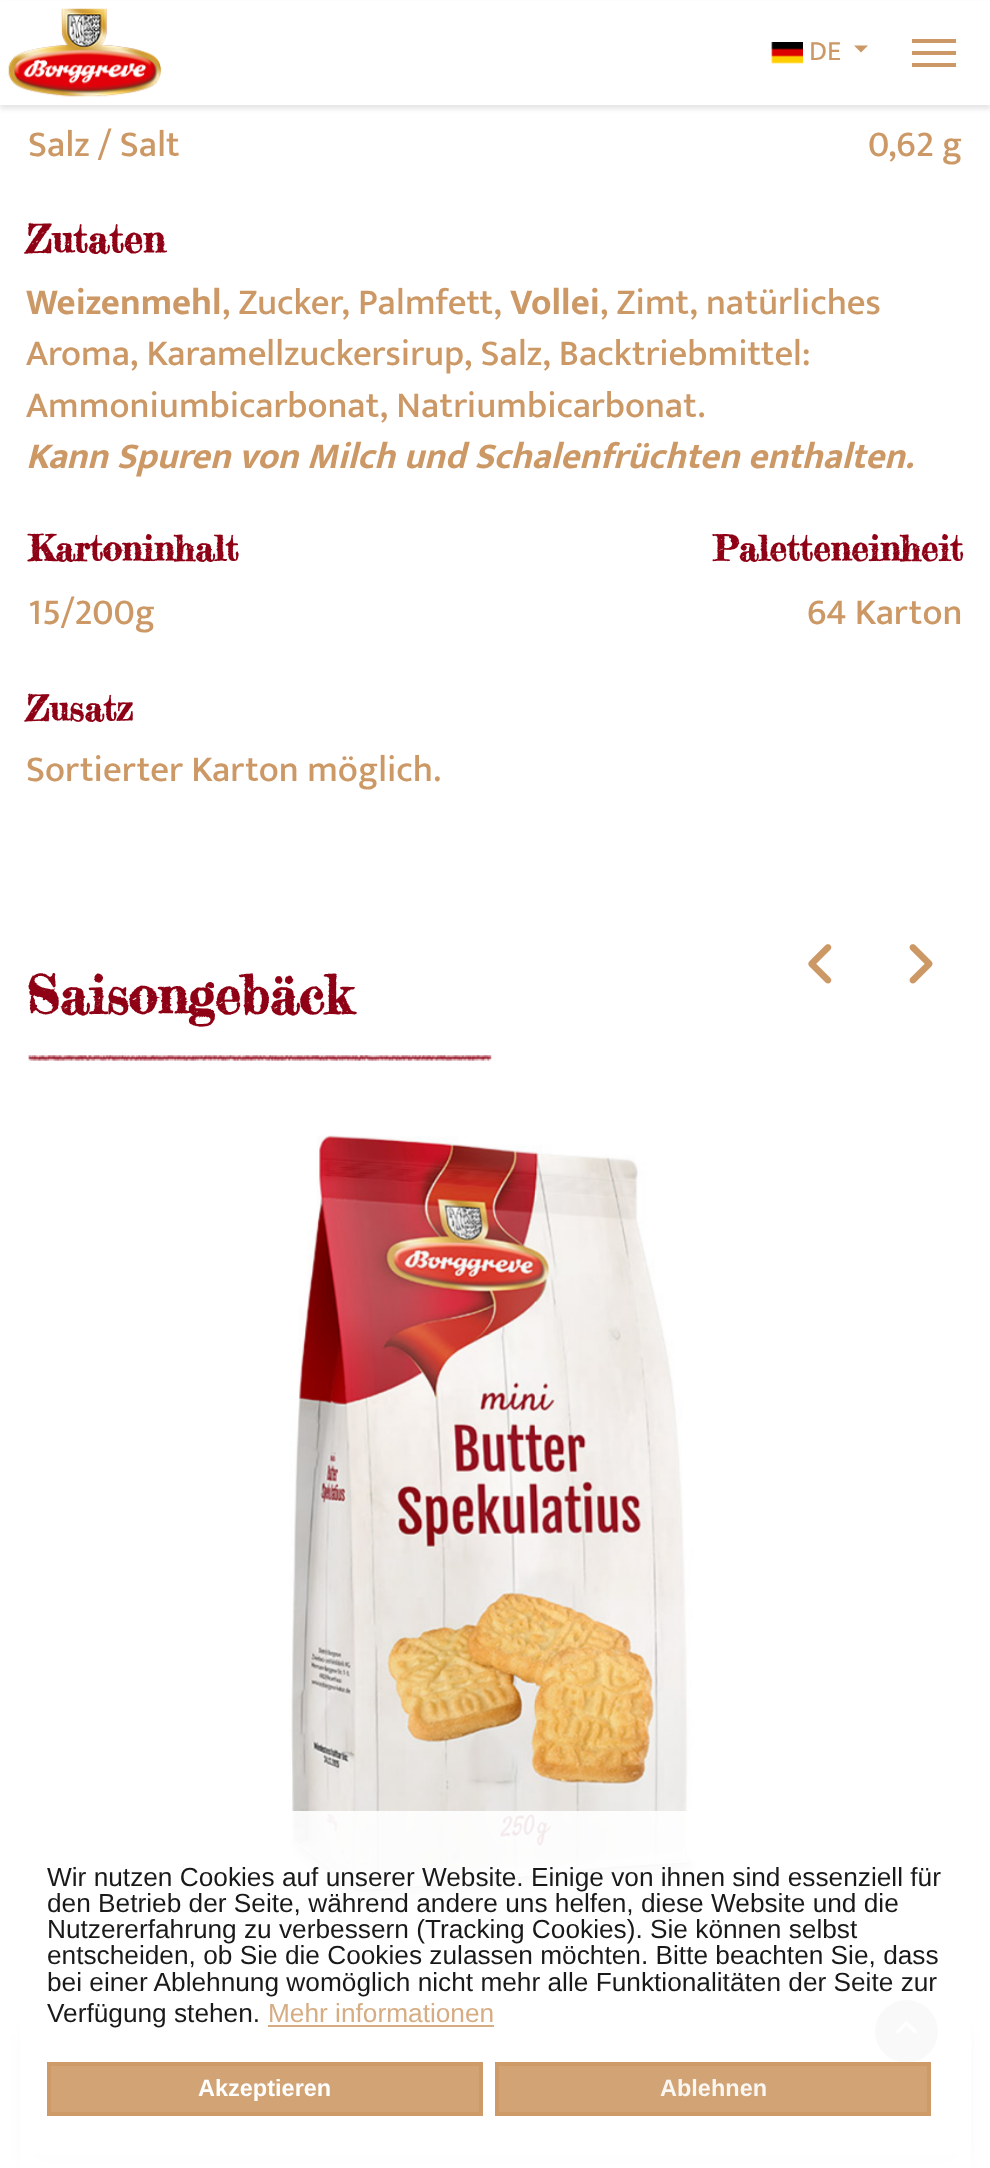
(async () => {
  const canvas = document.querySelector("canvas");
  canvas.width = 990;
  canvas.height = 2168;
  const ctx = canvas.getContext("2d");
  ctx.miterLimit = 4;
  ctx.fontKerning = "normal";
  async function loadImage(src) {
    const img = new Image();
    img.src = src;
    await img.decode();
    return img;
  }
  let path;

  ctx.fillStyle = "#ffffff";
  ctx.fillRect(0, 0, 990, 2168);
  ctx.fillStyle = "rgba(0, 0, 0, 0.1)";
  ctx.filter = "blur(2.5px)";
  ctx.beginPath();
  ctx.rect(0, 4, 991, 105);
  ctx.fill();
  ctx.filter = "none";
  ctx.fillStyle = "#ffffff";
  ctx.fillRect(0, 1, 990, 104);
  ctx.drawImage(await loadImage("img/1.png"), 8, 8, 154, 89);
  ctx.drawImage(await loadImage("img/2.png"), 771, 42, 32, 22);
  ctx.fillStyle = "#cc9966";
  path = new Path2D("M854 45.5H868L861 52.5Z");
  ctx.fill(path);
  for (const [x, y, w, h, color] of [
    [912, 39, 44, 4, "#cc9966"],
    [912, 51, 44, 4, "#cc9966"],
    [912, 63, 44, 4, "#cc9966"],
  ]) {
    ctx.fillStyle = color;
    ctx.fillRect(x, y, w, h);
  }
  ctx.drawImage(await loadImage("img/3.png"), 808, 944, 24, 40);
  ctx.drawImage(await loadImage("img/4.png"), 909, 944, 24, 40);
  ctx.drawImage(await loadImage("img/5.png"), 289, 1135, 410, 775);
  ctx.fillStyle = "rgba(49, 41, 41, 0.1)";
  ctx.filter = "blur(10.5px)";
  ctx.beginPath();
  ctx.rect(32, 2034, 927, 126);
  ctx.fill();
  ctx.filter = "none";
  ctx.fillStyle = "#ffffff";
  ctx.fillRect(26, 2022, 938, 132);
  ctx.drawImage(await loadImage("img/6.png"), 28, 1055, 464, 6);
  ctx.fillStyle = "#c1c1c1";
  ctx.beginPath();
  ctx.arc(906.5, 2031.5, 31.5, 0, Math.PI * 2);
  ctx.fill();
  ctx.drawImage(await loadImage("img/7.png"), 896, 2021, 21, 13);
  ctx.fillStyle = "rgba(255, 255, 255, 0.9)";
  ctx.fillRect(20, 1811, 951, 357);
  ctx.fillStyle = "#d6ac83";
  ctx.fillRect(268, 2025, 226, 2);
  ctx.fillStyle = "rgba(204, 153, 102, 0.9)";
  ctx.beginPath();
  ctx.rect(49, 2064, 432, 50);
  ctx.fill();
  ctx.strokeStyle = "#cd9a68";
  ctx.lineWidth = 4;
  ctx.stroke();
  ctx.beginPath();
  ctx.rect(497, 2064, 432, 50);
  ctx.fill();
  ctx.stroke();
  ctx.font = "28px Mukta";
  ctx.fillStyle = "#cc9966";
  ctx.fillText("DE", 809, 60);
  ctx.font = "500 36.75px Mukta";
  ctx.fillText("Salz / Salt", 28, 156);
  ctx.fillText("0,62 g", 868, 156);
  ctx.font = "bold 38.5px Fredericka the Great";
  ctx.fillStyle = "#8f0115";
  ctx.fillText("Zutaten", 26, 253);
  ctx.font = "bold 36.75px Mukta";
  ctx.fillStyle = "#cc9966";
  ctx.fillText("Weizenmehl", 26, 314);
  ctx.font = "500 36.75px Mukta";
  ctx.fillText(", Zucker, Palmfett,", 222, 314);
  ctx.font = "bold 36.75px Mukta";
  ctx.fillText("Vollei", 510, 314);
  ctx.font = "500 36.75px Mukta";
  for (const [text, x, y] of [
    [", Zimt, natürliches", 600, 314],
    ["Aroma, Karamellzuckersirup, Salz, Backtriebmittel:", 26, 365],
    ["Ammoniumbicarbonat, Natriumbicarbonat.", 26, 417],
  ]) {
    ctx.fillText(text, x, y);
  }
  ctx.font = "italic bold 36.75px Mukta";
  ctx.fillText("Kann Spuren von Milch und Schalenfrüchten enthalten.", 26, 468);
  ctx.font = "bold 35px Fredericka the Great";
  ctx.fillStyle = "#8f0115";
  ctx.fillText("Kartoninhalt", 28, 561);
  ctx.fillText("Paletteneinheit", 713, 561);
  ctx.font = "500 36.75px Mukta";
  ctx.fillStyle = "#cc9966";
  ctx.fillText("15/200g", 28, 624);
  ctx.fillText("64 Karton", 807, 624);
  ctx.font = "bold 35px Fredericka the Great";
  ctx.fillStyle = "#8f0115";
  ctx.fillText("Zusatz", 26, 721);
  ctx.font = "500 36.75px Mukta";
  ctx.fillStyle = "#cc9966";
  ctx.fillText("Sortierter Karton möglich.", 26, 781);
  ctx.font = "bold 52.5px Fredericka the Great";
  ctx.fillStyle = "#8f0115";
  ctx.fillText("Saisongebäck", 26, 1014);
  ctx.font = "26.25px Liberation Sans";
  ctx.fillStyle = "#191919";
  for (const [text, x, y] of [
    ["Wir nutzen Cookies auf unserer Website. Einige von ihnen sind essenziell für", 47, 1886],
    ["den Betrieb der Seite, während andere uns helfen, diese Website und die", 47, 1912],
    ["Nutzererfahrung zu verbessern (Tracking Cookies). Sie können selbst", 47, 1938],
    ["entscheiden, ob Sie die Cookies zulassen möchten. Bitte beachten Sie, dass", 47, 1964],
    ["bei einer Ablehnung womöglich nicht mehr alle Funktionalitäten der Seite zur", 47, 1991],
    ["Verfügung stehen.", 47, 2022],
  ]) {
    ctx.fillText(text, x, y);
  }
  ctx.fillStyle = "#d6ac83";
  ctx.fillText("Mehr informationen", 268, 2022);
  ctx.font = "bold 23.5px Liberation Sans";
  ctx.fillStyle = "#ffffff";
  ctx.fillText("Akzeptieren", 198, 2096);
  ctx.fillStyle = "#faf6f1";
  ctx.fillText("Ablehnen", 660, 2096);
})();
